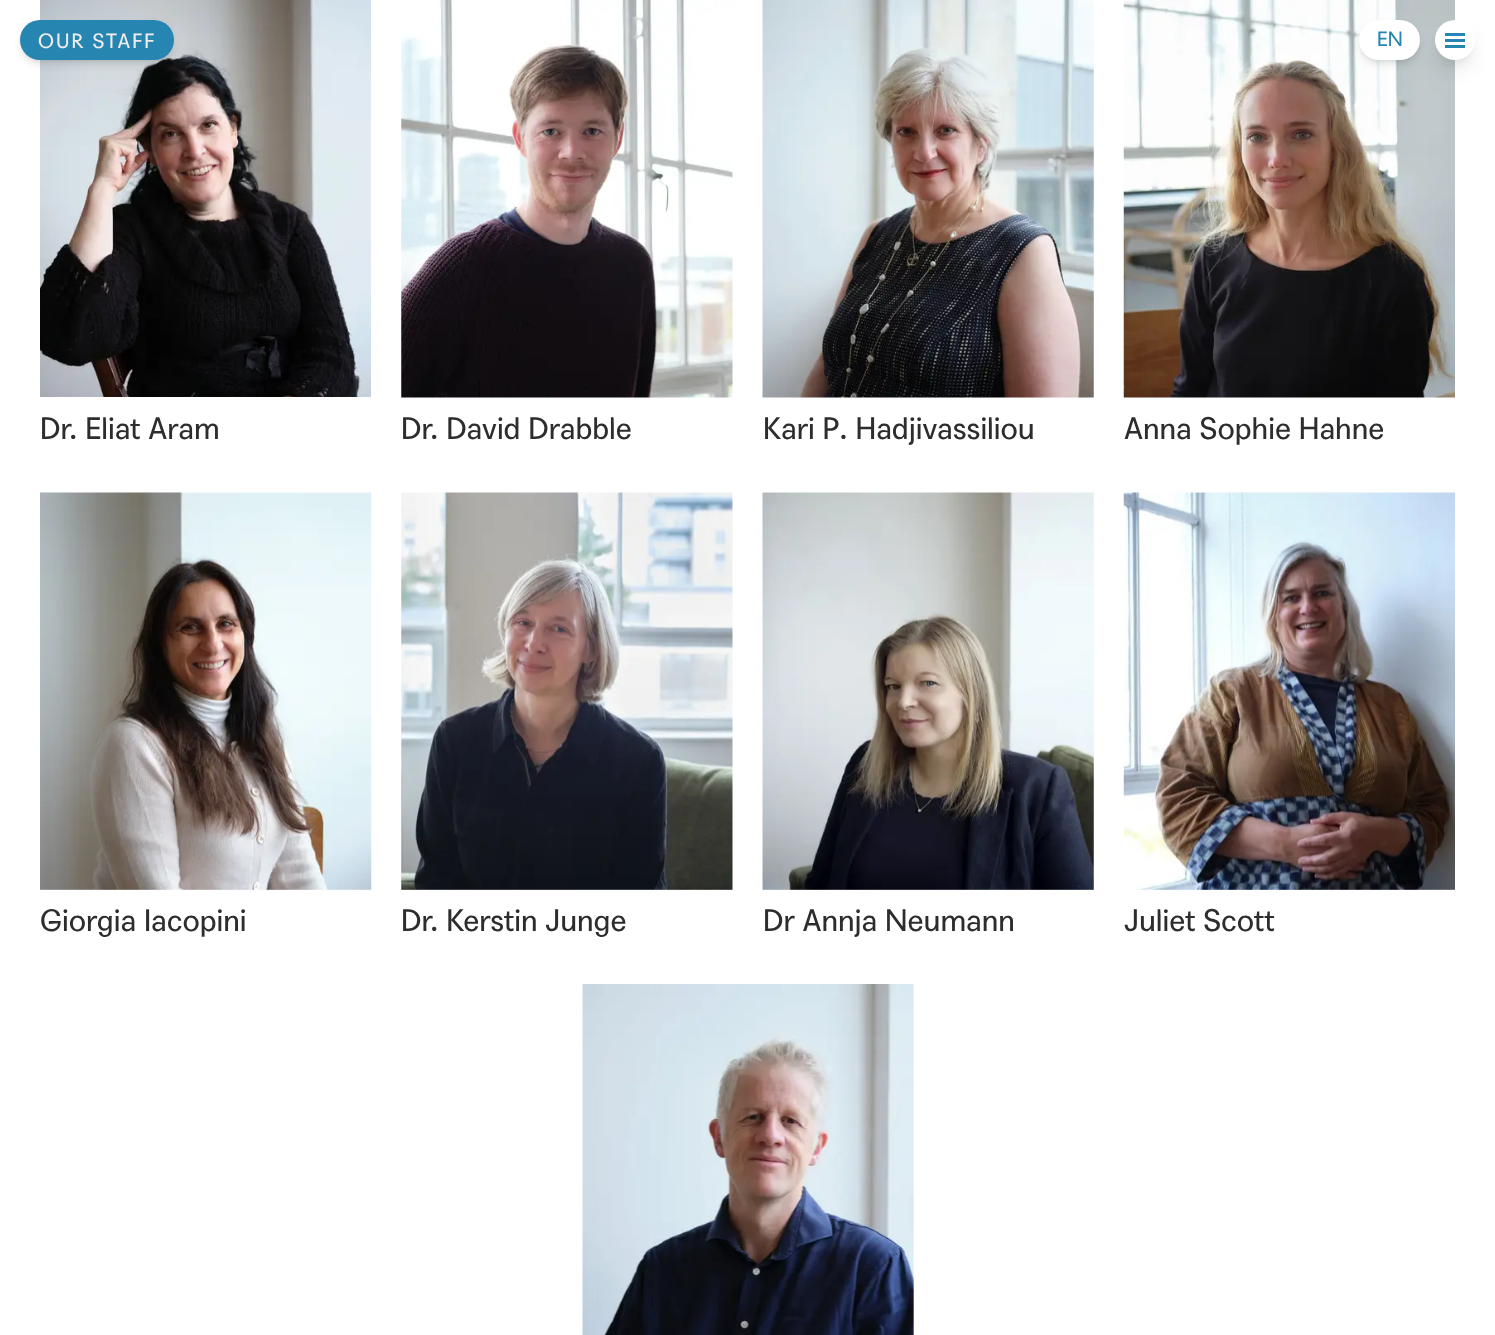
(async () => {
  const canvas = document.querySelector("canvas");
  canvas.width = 1495;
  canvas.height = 1335;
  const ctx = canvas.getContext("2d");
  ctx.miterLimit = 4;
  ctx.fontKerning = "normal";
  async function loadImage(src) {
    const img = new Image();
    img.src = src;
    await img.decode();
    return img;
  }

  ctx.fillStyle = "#ffffff";
  ctx.fillRect(0, 0, 1495, 1335);
  ctx.drawImage(await loadImage("img/1.png"), 40, 0, 331, 397);
  ctx.fillStyle = "rgba(0, 0, 0, 0.1)";
  ctx.filter = "blur(2.5px)";
  ctx.beginPath();
  ctx.roundRect(23, 25, 148, 35, 17.5);
  ctx.fill();
  ctx.filter = "none";
  ctx.filter = "blur(4px)";
  ctx.beginPath();
  ctx.roundRect(21, 26, 152, 38, 19);
  ctx.fill();
  ctx.filter = "none";
  ctx.fillStyle = "#2785b2";
  ctx.beginPath();
  ctx.roundRect(20, 20, 154, 40, 20);
  ctx.fill();
  ctx.drawImage(await loadImage("img/2.png"), 401, 0, 332, 398);
  ctx.drawImage(await loadImage("img/3.png"), 762, 0, 332, 398);
  ctx.drawImage(await loadImage("img/4.png"), 1123, 0, 332, 398);
  ctx.drawImage(await loadImage("img/5.png"), 40, 492, 332, 398);
  ctx.drawImage(await loadImage("img/6.png"), 401, 492, 332, 398);
  ctx.drawImage(await loadImage("img/7.png"), 762, 492, 332, 398);
  ctx.drawImage(await loadImage("img/8.png"), 1123, 492, 332, 398);
  ctx.drawImage(await loadImage("img/9.png"), 582, 984, 332, 351);
  ctx.fillStyle = "rgba(0, 0, 0, 0.1)";
  ctx.filter = "blur(2.5px)";
  ctx.beginPath();
  ctx.roundRect(1361, 25, 57, 35, 17.5);
  ctx.fill();
  ctx.filter = "none";
  ctx.filter = "blur(4px)";
  ctx.beginPath();
  ctx.roundRect(1360, 26, 59, 38, 19);
  ctx.fill();
  ctx.filter = "none";
  ctx.fillStyle = "#ffffff";
  ctx.beginPath();
  ctx.roundRect(1359, 20, 61, 40, 20);
  ctx.fill();
  ctx.fillStyle = "rgba(0, 0, 0, 0.1)";
  ctx.filter = "blur(4px)";
  ctx.beginPath();
  ctx.roundRect(1440, 30, 30, 30, 15);
  ctx.fill();
  ctx.filter = "none";
  ctx.filter = "blur(9.5px)";
  ctx.beginPath();
  ctx.roundRect(1439, 36, 32, 33, 16);
  ctx.fill();
  ctx.filter = "none";
  ctx.fillStyle = "#ffffff";
  ctx.beginPath();
  ctx.arc(1455, 40, 20, 0, Math.PI * 2);
  ctx.fill();
  for (const [x, y, w, h, color] of [
    [1445, 33, 20, 3, "#2785b2"],
    [1445, 39, 20, 3, "#2785b2"],
    [1445, 45, 20, 3, "#2785b2"],
  ]) {
    ctx.fillStyle = color;
    ctx.fillRect(x, y, w, h);
  }
  ctx.letterSpacing = "2px";
  ctx.font = "20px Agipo";
  ctx.fillStyle = "#eeeded";
  ctx.fillText("OUR STAFF", 38, 48);
  ctx.letterSpacing = "0px";
  ctx.font = "30px Agipo";
  ctx.fillStyle = "#2e2d2c";
  for (const [text, x, y] of [
    ["Dr. Eliat Aram", 40, 439],
    ["Dr. David Drabble", 401, 439],
    ["Kari P. Hadjivassiliou", 763, 439],
    ["Anna Sophie Hahne", 1124, 439],
    ["Giorgia Iacopini", 40, 931],
    ["Dr. Kerstin Junge", 401, 931],
    ["Dr Annja Neumann", 763, 931],
    ["Juliet Scott", 1124, 931],
  ]) {
    ctx.fillText(text, x, y);
  }
  ctx.font = "20px Agipo";
  ctx.fillStyle = "#2785b2";
  ctx.fillText("EN", 1377, 46);
})();
